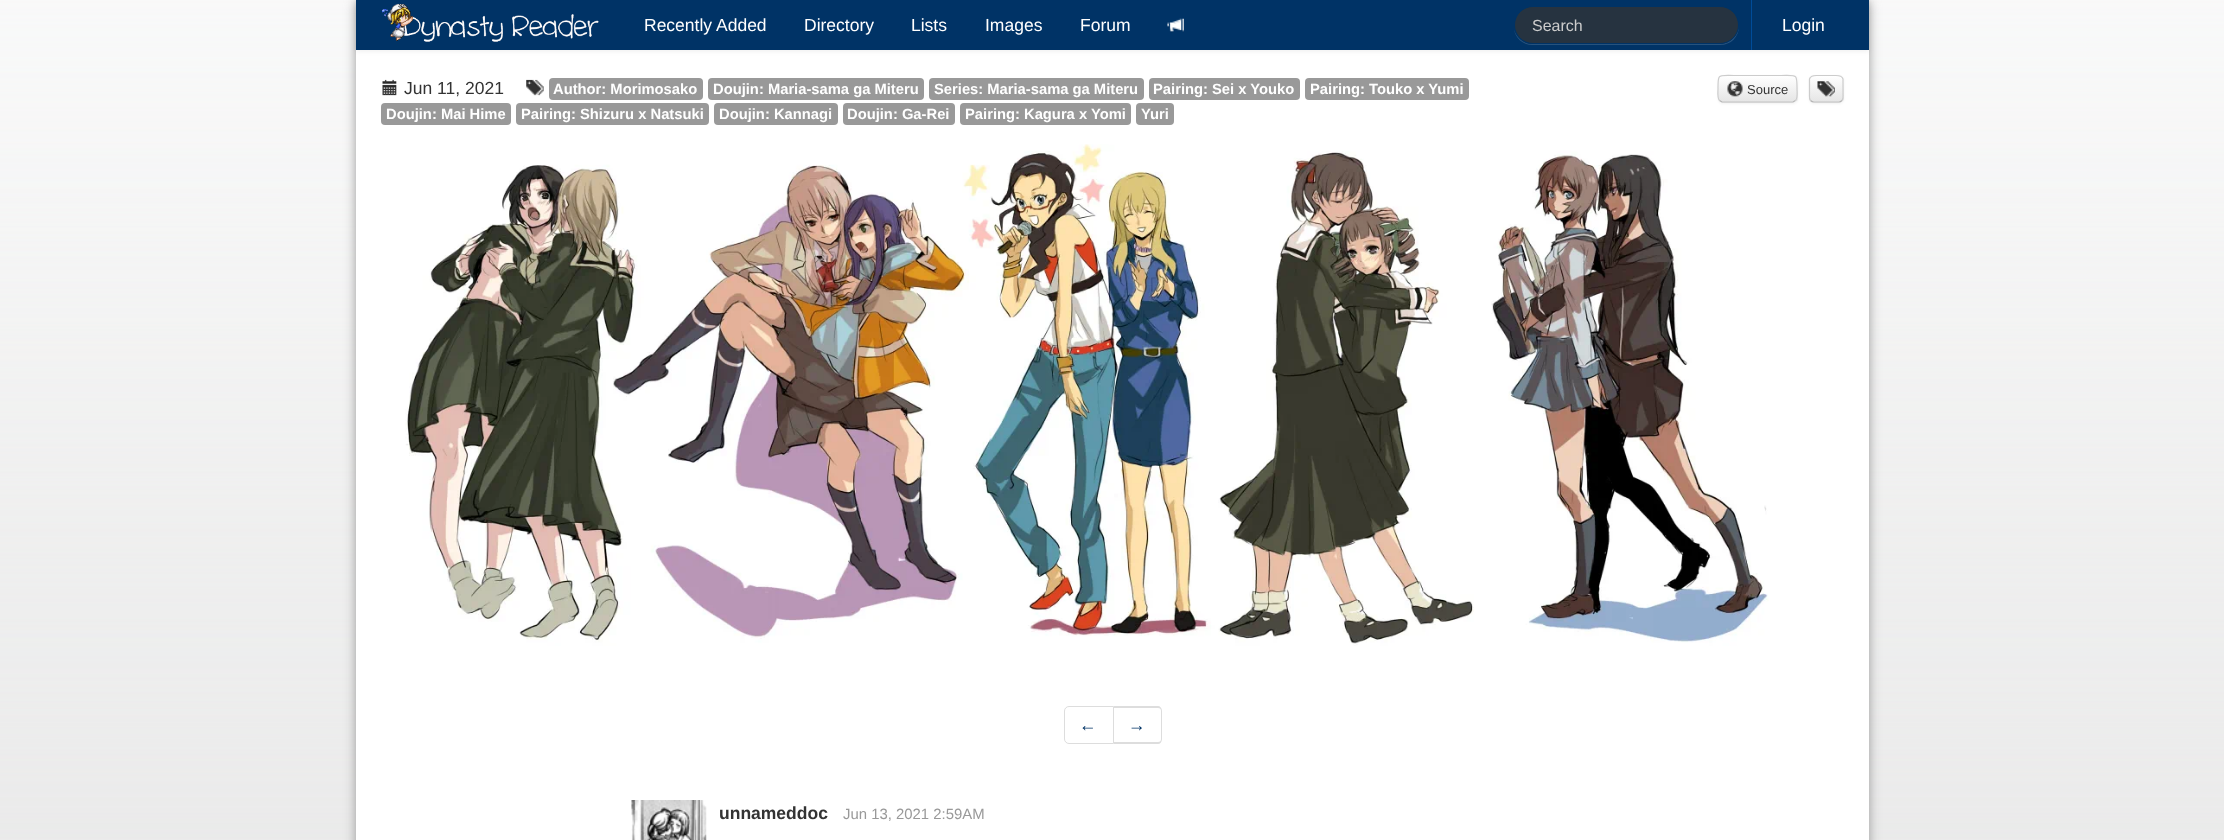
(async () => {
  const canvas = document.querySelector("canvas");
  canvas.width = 2224;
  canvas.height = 840;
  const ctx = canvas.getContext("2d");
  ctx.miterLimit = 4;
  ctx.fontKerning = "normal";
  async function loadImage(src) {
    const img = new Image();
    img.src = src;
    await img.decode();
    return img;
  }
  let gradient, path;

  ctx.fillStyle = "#ffffff";
  ctx.fillRect(0, 0, 2224, 840);
  ctx.drawImage(await loadImage("img/1.png"), 0, 0, 2224, 840);
  ctx.fillStyle = "#999999";
  ctx.filter = "blur(6px)";
  ctx.beginPath();
  ctx.roundRect(356, 0, 1513, 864, 6);
  ctx.fill();
  ctx.filter = "none";
  ctx.fillStyle = "#ffffff";
  ctx.fillRect(356, 50, 1513, 790);
  ctx.fillStyle = "rgba(0, 0, 0, 0.07)";
  ctx.filter = "blur(2.5px)";
  ctx.beginPath();
  ctx.rect(356, 1, 1513, 50);
  ctx.fill();
  ctx.filter = "none";
  ctx.fillStyle = "#003366";
  ctx.fillRect(356, 0, 1513, 50);
  ctx.drawImage(await loadImage("img/2.png"), 382, 3, 217, 39);
  ctx.drawImage(await loadImage("img/3.png"), 1167, 18, 17, 15);
  ctx.fillStyle = "#26527d";
  path = new Path2D("M1514 29C1515 38 1523 45 1532 45H1720C1731 45 1739 37 1739 26V23V25C1739 35 1730 44 1720 44H1532C1523 44 1516 37 1514 29Z");
  ctx.fill(path);
  ctx.fillStyle = "#263340";
  ctx.beginPath();
  ctx.roundRect(1514.5, 6.5, 224, 37, 18.5);
  ctx.fill();
  ctx.strokeStyle = "#003366";
  ctx.stroke();
  ctx.fillStyle = "#004c99";
  ctx.fillRect(1751, 0, 1, 50);
  ctx.drawImage(await loadImage("img/4.png"), 382, 79, 15, 17);
  ctx.drawImage(await loadImage("img/5.png"), 526, 79, 18, 17);
  ctx.fillStyle = "#999999";
  ctx.beginPath();
  ctx.roundRect(549, 78, 154, 22, 4);
  ctx.fill();
  ctx.beginPath();
  ctx.roundRect(708, 78, 216, 22, 4);
  ctx.fill();
  ctx.beginPath();
  ctx.roundRect(929, 78, 215, 22, 4);
  ctx.fill();
  ctx.beginPath();
  ctx.roundRect(1149, 78, 151, 22, 4);
  ctx.fill();
  ctx.beginPath();
  ctx.roundRect(1305, 78, 164, 22, 4);
  ctx.fill();
  ctx.beginPath();
  ctx.roundRect(381, 103, 130, 22, 4);
  ctx.fill();
  ctx.beginPath();
  ctx.roundRect(516, 103, 193, 22, 4);
  ctx.fill();
  ctx.beginPath();
  ctx.roundRect(714, 103, 124, 22, 4);
  ctx.fill();
  ctx.beginPath();
  ctx.roundRect(843, 103, 112, 22, 4);
  ctx.fill();
  ctx.beginPath();
  ctx.roundRect(960, 103, 171, 22, 4);
  ctx.fill();
  ctx.beginPath();
  ctx.roundRect(1136, 103, 38, 22, 4);
  ctx.fill();
  ctx.fillStyle = "rgba(0, 0, 0, 0.05)";
  ctx.filter = "blur(1px)";
  ctx.beginPath();
  ctx.roundRect(1718, 76, 80, 28, 5);
  ctx.fill();
  ctx.filter = "none";
  ctx.fillStyle = "#f5f5f5";
  ctx.beginPath();
  ctx.roundRect(1718, 75, 80, 28, 5);
  ctx.fill();
  ctx.save();
  ctx.beginPath();
  ctx.roundRect(1718, 75, 80, 28, 5);
  ctx.clip();
  gradient = ctx.createLinearGradient(1758, 76, 1758, 101);
  gradient.addColorStop(0, "#ffffff");
  gradient.addColorStop(1, "#e6e6e6");
  ctx.fillStyle = gradient;
  ctx.fillRect(1718, 76, 80, 25);
  ctx.restore();
  path = new Path2D("M1795.5 100.5L1793 102H1722L1719.5 100.5");
  ctx.strokeStyle = "#b3b3b3";
  ctx.lineWidth = 1.2;
  ctx.stroke(path);
  path = new Path2D("M1719.5 100.5C1717 98 1718 92 1718 89C1718 73.5 1717.5 75.5 1734 75.5H1781C1797.5 75.5 1797 73.5 1797 89C1797 92 1798 98 1795.5 100.5");
  ctx.strokeStyle = "#cccccc";
  ctx.stroke(path);
  ctx.drawImage(await loadImage("img/6.png"), 1727, 81, 16, 16);
  ctx.fillStyle = "rgba(0, 0, 0, 0.05)";
  ctx.filter = "blur(1px)";
  ctx.beginPath();
  ctx.roundRect(1809, 76, 35, 28, 5);
  ctx.fill();
  ctx.filter = "none";
  ctx.fillStyle = "#f5f5f5";
  ctx.beginPath();
  ctx.roundRect(1809, 75, 35, 28, 5);
  ctx.fill();
  ctx.save();
  ctx.beginPath();
  ctx.roundRect(1809, 75, 35, 28, 5);
  ctx.clip();
  gradient = ctx.createLinearGradient(1826, 76, 1826, 101);
  gradient.addColorStop(0, "#ffffff");
  gradient.addColorStop(1, "#e6e6e6");
  ctx.fillStyle = gradient;
  ctx.fillRect(1809, 76, 35, 25);
  ctx.restore();
  ctx.fillStyle = "rgba(255, 255, 255, 0.2)";
  path = new Path2D("M1814 78C1818 78 1839.5 77 1841.5 79.5L1842.5 81L1842 90L1842.5 99C1843 98.5 1843 98 1843 97V80C1843 78 1841 76 1839 76H1814C1812 76 1810 78 1810 80V81.5C1810.5 79.5 1811.5 78 1814 78Z");
  ctx.fill(path);
  path = new Path2D("M1842 100.5C1841 101.5 1840 102 1839 102H1814C1812.5 102 1811.5 101.5 1810.5 100.5");
  ctx.strokeStyle = "#b3b3b3";
  ctx.stroke(path);
  path = new Path2D("M1810.5 100.5C1809 99 1809.5 96.5 1809.5 94.5V79C1810.5 75 1815 75.5 1818 75.5H1834.5C1837.5 75.5 1842 75 1843 79V94.5C1843 96.5 1843.5 99 1842 100.5");
  ctx.strokeStyle = "#cccccc";
  ctx.stroke(path);
  ctx.drawImage(await loadImage("img/7.png"), 1817, 81, 18, 16);
  ctx.drawImage(await loadImage("img/8.png"), 405, 144, 1364, 502);
  ctx.beginPath();
  ctx.roundRect(1064.5, 706.5, 49, 37, [4.5, 0, 0, 4.5]);
  ctx.strokeStyle = "#dddddd";
  ctx.lineWidth = 1;
  ctx.stroke();
  ctx.fillStyle = "#dddddd";
  path = new Path2D("M1114 706H1158C1160 706 1162 708 1162 711V739C1162 742 1160 744 1158 744H1114ZM1114 708H1158C1160 708 1161 709 1161 711V739C1161 741 1160 742 1158 742H1114Z");
  ctx.fill(path, "evenodd");
  ctx.drawImage(await loadImage("img/9.png"), 631, 800, 76, 40);
  ctx.font = "17.5px Liberation Sans";
  ctx.fillStyle = "#ffffff";
  for (const [text, x, y] of [
    ["Recently", 644, 31],
    ["Added", 716, 31],
    ["Directory", 804, 31],
    ["Lists", 911, 31],
    ["Images", 985, 31],
    ["Forum", 1080, 31],
  ]) {
    ctx.fillText(text, x, y);
  }
  ctx.font = "16px Liberation Sans";
  ctx.fillStyle = "#cccccc";
  ctx.fillText("Search", 1532, 31);
  ctx.font = "17.5px Liberation Sans";
  ctx.fillStyle = "#ffffff";
  ctx.fillText("Login", 1782, 31);
  ctx.fillStyle = "#333333";
  ctx.fillText("Jun 11, 2021", 404, 94);
  ctx.font = "bold 14.75px Liberation Sans";
  ctx.fillStyle = "#ffffff";
  for (const [text, x, y] of [
    ["Author: Morimosako", 553, 94],
    ["Doujin: Maria-sama ga Miteru", 713, 94],
    ["Series: Maria-sama ga Miteru", 934, 94],
    ["Pairing: Sei x Youko", 1153, 94],
    ["Pairing: Touko x Yumi", 1310, 94],
    ["Doujin: Mai Hime", 386, 119],
    ["Pairing: Shizuru x Natsuki", 521, 119],
    ["Doujin: Kannagi", 719, 119],
    ["Doujin: Ga-Rei", 847, 119],
    ["Pairing: Kagura x Yomi", 965, 119],
    ["Yuri", 1141, 119],
  ]) {
    ctx.fillText(text, x, y);
  }
  ctx.font = "13px Liberation Sans";
  ctx.fillStyle = "#333333";
  ctx.fillText("Source", 1747, 94);
  ctx.font = "17.5px Liberation Sans";
  ctx.fillStyle = "#003366";
  ctx.fillText("←", 1079, 731);
  ctx.fillText("→", 1128, 731);
  ctx.font = "bold 17.5px Liberation Sans";
  ctx.fillStyle = "#333333";
  ctx.fillText("unnameddoc", 719, 819);
  ctx.font = "14.9px Liberation Sans";
  ctx.fillStyle = "#999999";
  ctx.fillText("Jun 13, 2021 2:59AM", 843, 819);
})();
